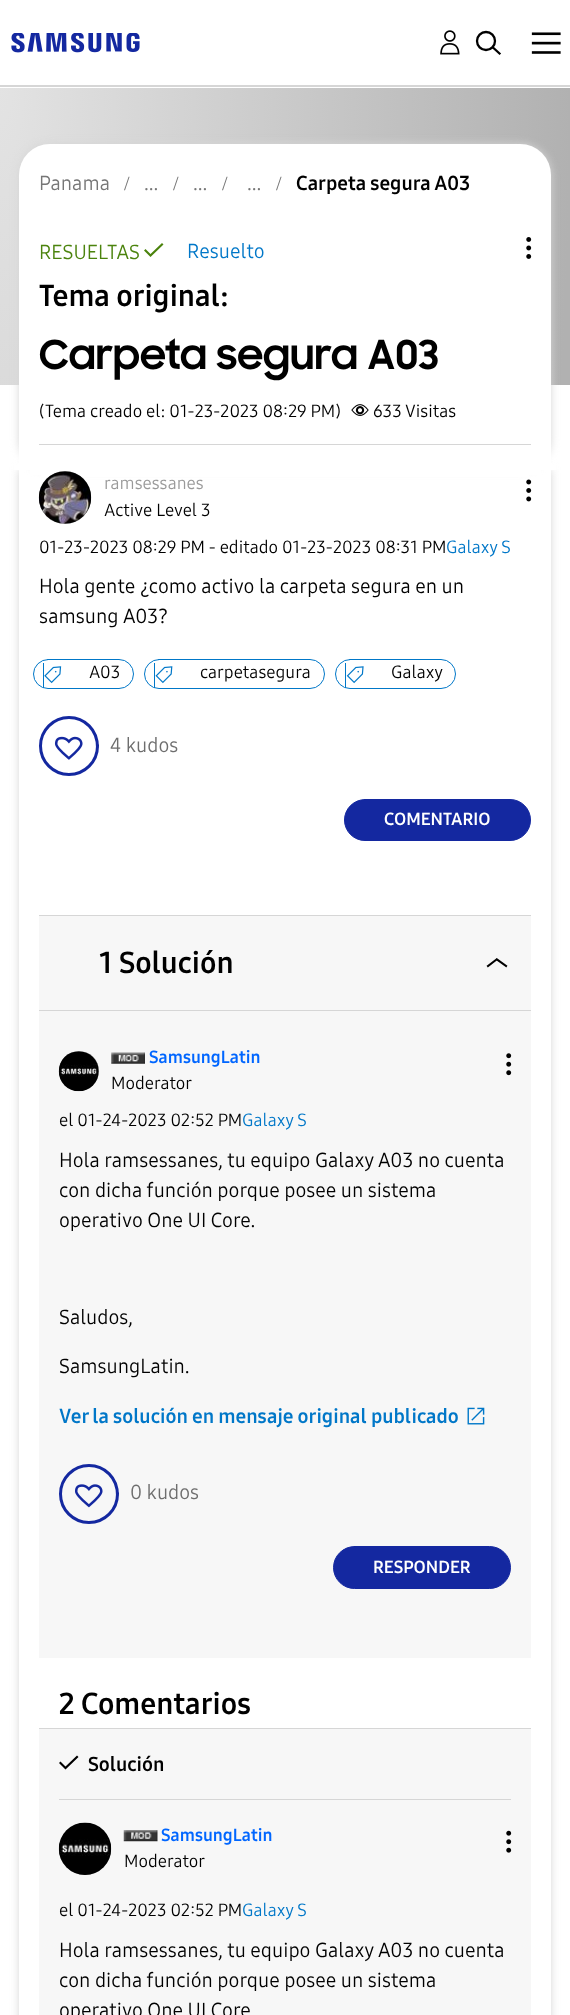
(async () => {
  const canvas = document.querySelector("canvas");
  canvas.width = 570;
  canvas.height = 2015;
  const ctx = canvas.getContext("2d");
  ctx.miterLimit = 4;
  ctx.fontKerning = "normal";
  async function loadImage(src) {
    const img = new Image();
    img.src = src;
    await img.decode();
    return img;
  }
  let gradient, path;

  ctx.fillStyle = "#ffffff";
  ctx.fillRect(0, 0, 570, 2015);
  ctx.save();
  path = new Path2D("M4 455H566V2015H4ZM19 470H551V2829H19Z");
  ctx.clip(path, "evenodd");
  ctx.fillStyle = "#d6d6d6";
  ctx.filter = "blur(4.5px)";
  ctx.beginPath();
  ctx.rect(19, 470, 532, 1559);
  ctx.fill();
  ctx.filter = "none";
  ctx.restore();
  ctx.fillRect(14, 463, 542, 7);
  ctx.drawImage(await loadImage("img/1.png"), 440, 30, 20, 25);
  ctx.beginPath();
  ctx.arc(486, 41, 9, 0, Math.PI * 2);
  ctx.strokeStyle = "#000000";
  ctx.lineWidth = 2.3;
  ctx.stroke();
  path = new Path2D("M493.5 48L499.5 53.5");
  ctx.lineCap = "square";
  ctx.stroke(path);
  ctx.drawImage(await loadImage("img/2.png"), 531, 32, 30, 22);
  ctx.fillStyle = "#d6d6d6";
  ctx.fillRect(0, 85, 570, 2);
  ctx.drawImage(await loadImage("img/3.png"), 11, 33, 129, 20);
  gradient = ctx.createRadialGradient(0, 26.92, 0, 0, 26.92, 570);
  gradient.addColorStop(0, "#e3e3e3");
  gradient.addColorStop(1, "#b1b1b1");
  ctx.fillStyle = gradient;
  ctx.beginPath();
  ctx.rect(0, 88, 570, 297);
  ctx.save();
  ctx.clip();
  ctx.scale(1, 1800 / 570);
  ctx.fillRect(0, 0, 570, 639);
  ctx.restore();
  ctx.fillStyle = "#d6d6d6";
  ctx.filter = "blur(4.5px)";
  ctx.beginPath();
  ctx.roundRect(19, 144, 532, 326, 31);
  ctx.fill();
  ctx.filter = "none";
  ctx.fillStyle = "#ffffff";
  ctx.beginPath();
  ctx.roundRect(19, 144, 532, 326, [31, 31, 0, 0]);
  ctx.fill();
  ctx.fillStyle = "#d6d6d6";
  ctx.fillRect(39, 444, 492, 1);
  ctx.fillStyle = "#4b830d";
  path = new Path2D("M162 243L163.5 244.5L150.5 257L144 250.5L145.5 249L150.5 254Z");
  ctx.fill(path);
  ctx.drawImage(await loadImage("img/4.png"), 526, 237, 6, 22);
  ctx.drawImage(await loadImage("img/5.png"), 351, 404, 18, 12);
  ctx.fillStyle = "#ffffff";
  ctx.fillRect(30, 470, 511, 5);
  ctx.fillRect(41, 475, 488, 2);
  ctx.fillStyle = "#999999";
  ctx.filter = "blur(0.5px)";
  ctx.beginPath();
  ctx.roundRect(39, 471, 52, 53, 26);
  ctx.fill();
  ctx.filter = "none";
  ctx.drawImage(await loadImage("img/6.png"), 38, 471, 54, 53);
  ctx.drawImage(await loadImage("img/7.png"), 526, 479, 6, 23);
  ctx.beginPath();
  ctx.roundRect(33.5, 659.5, 100, 29, 14.5);
  ctx.strokeStyle = "#0077c8";
  ctx.lineWidth = 1;
  ctx.stroke();
  ctx.drawImage(await loadImage("img/8.png"), 44, 666, 18, 18);
  ctx.fillStyle = "#0077c8";
  ctx.fillRect(43, 663, 1, 25);
  ctx.beginPath();
  ctx.roundRect(144.5, 659.5, 180, 29, 14.5);
  ctx.stroke();
  ctx.drawImage(await loadImage("img/9.png"), 155, 666, 18, 18);
  ctx.fillRect(154, 663, 1, 25);
  ctx.beginPath();
  ctx.roundRect(335.5, 659.5, 120, 29, 14.5);
  ctx.stroke();
  ctx.drawImage(await loadImage("img/10.png"), 346, 666, 18, 18);
  ctx.fillRect(345, 663, 1, 25);
  ctx.beginPath();
  ctx.arc(69, 746, 28.5, 0, Math.PI * 2);
  ctx.strokeStyle = "#1428a0";
  ctx.lineWidth = 3;
  ctx.stroke();
  ctx.drawImage(await loadImage("img/11.png"), 54, 736, 29, 24);
  ctx.fillStyle = "#1428a0";
  ctx.beginPath();
  ctx.roundRect(344.5, 799.5, 186, 41, 20.5);
  ctx.fill();
  ctx.lineWidth = 1;
  ctx.stroke();
  for (const [x, y, w, h, color] of [
    [39, 916, 492, 742, "#f7f7f7"],
    [39, 915, 492, 1, "#d6d6d6"],
    [39, 1010, 492, 1, "#d6d6d6"],
  ]) {
    ctx.fillStyle = color;
    ctx.fillRect(x, y, w, h);
  }
  path = new Path2D("M488 966L496.5 959.5M506 966L497 959.5");
  ctx.strokeStyle = "#000000";
  ctx.lineWidth = 2.1;
  ctx.stroke(path);
  ctx.fillStyle = "#999999";
  ctx.filter = "blur(0.5px)";
  ctx.beginPath();
  ctx.roundRect(59, 1051, 40, 40, 20);
  ctx.fill();
  ctx.filter = "none";
  ctx.drawImage(await loadImage("img/12.png"), 58, 1051, 41, 41);
  ctx.drawImage(await loadImage("img/13.png"), 111, 1052, 34, 12);
  ctx.drawImage(await loadImage("img/14.png"), 506, 1053, 6, 23);
  ctx.drawImage(await loadImage("img/15.png"), 467, 1407, 18, 18);
  ctx.beginPath();
  ctx.arc(89, 1494, 28.5, 0, Math.PI * 2);
  ctx.strokeStyle = "#1428a0";
  ctx.lineWidth = 3;
  ctx.stroke();
  ctx.drawImage(await loadImage("img/16.png"), 75, 1484, 28, 24);
  ctx.fillStyle = "#1428a0";
  ctx.beginPath();
  ctx.roundRect(333.5, 1546.5, 177, 42, 21);
  ctx.fill();
  ctx.lineWidth = 1;
  ctx.stroke();
  for (const [x, y, w, h, color] of [
    [39, 1728, 492, 1, "#d6d6d6"],
    [39, 1729, 492, 286, "#f7f7f7"],
    [59, 1799, 452, 1, "#d6d6d6"],
  ]) {
    ctx.fillStyle = color;
    ctx.fillRect(x, y, w, h);
  }
  ctx.fillStyle = "#000000";
  path = new Path2D("M77 1755.5L78.5 1757L65.5 1769.5L59 1763L60.5 1761.5L65.5 1766.5Z");
  ctx.fill(path);
  ctx.fillStyle = "#999999";
  ctx.filter = "blur(0.5px)";
  ctx.beginPath();
  ctx.roundRect(59, 1823, 52, 52, 26);
  ctx.fill();
  ctx.filter = "none";
  ctx.drawImage(await loadImage("img/17.png"), 58, 1822, 54, 53);
  ctx.drawImage(await loadImage("img/18.png"), 123, 1830, 35, 12);
  ctx.drawImage(await loadImage("img/19.png"), 506, 1830, 6, 23);
  ctx.font = "20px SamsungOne";
  ctx.fillStyle = "#767676";
  ctx.fillText("Panama", 39, 190);
  ctx.font = "20px Liberation Serif";
  ctx.fillText("/", 124, 190);
  ctx.font = "20px SamsungOne";
  ctx.fillText("...", 144, 190);
  ctx.font = "20px Liberation Serif";
  ctx.fillText("/", 173, 190);
  ctx.font = "20px SamsungOne";
  ctx.fillText("...", 193, 190);
  ctx.font = "20px Liberation Serif";
  ctx.fillText("/", 222, 190);
  ctx.font = "20px SamsungOne";
  ctx.fillText("...", 247, 190);
  ctx.font = "20px Liberation Serif";
  ctx.fillText("/", 276, 190);
  ctx.font = "bold 20px SamsungOne";
  ctx.fillStyle = "#000000";
  ctx.fillText("Carpeta segura A03", 296, 190);
  ctx.font = "20px SamsungOne";
  ctx.fillStyle = "#4b830d";
  ctx.fillText("RESUELTAS", 39, 259);
  ctx.fillStyle = "#0077c8";
  ctx.fillText("Resuelto", 187, 258);
  ctx.font = "bold 30px SamsungOne";
  ctx.fillStyle = "#000000";
  ctx.fillText("Tema original:", 39, 306);
  ctx.font = "bold 40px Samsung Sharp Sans";
  ctx.fillText("Carpeta segura A03", 39, 369);
  ctx.font = "17.5px SamsungOne";
  ctx.fillText("(Tema creado el: 01-23-2023 08:29 PM)", 39, 417);
  ctx.fillText("633 Visitas", 373, 417);
  ctx.fillStyle = "#999999";
  ctx.fillText("ramsessanes", 104, 489);
  ctx.fillStyle = "#000000";
  ctx.fillText("Active Level 3", 104, 516);
  ctx.fillText("01-23-2023 08:29 PM - editado 01-23-2023 08:31 PM", 39, 553);
  ctx.fillStyle = "#0077c8";
  ctx.fillText("Galaxy S", 446, 553);
  ctx.font = "20px SamsungOne";
  ctx.fillStyle = "#000000";
  ctx.fillText("Hola gente ¿como activo la carpeta segura en un", 39, 593);
  ctx.fillText("samsung A03?", 39, 623);
  ctx.font = "17.5px SamsungOne";
  for (const [text, x, y] of [
    ["A03", 89, 678],
    ["carpetasegura", 200, 678],
    ["Galaxy", 391, 678],
  ]) {
    ctx.fillText(text, x, y);
  }
  ctx.font = "20px SamsungOne";
  ctx.fillStyle = "#6e6e6e";
  ctx.fillText("4 kudos", 110, 752);
  ctx.font = "bold 17.5px SamsungOne";
  ctx.fillStyle = "#ffffff";
  ctx.fillText("COMENTARIO", 384, 825);
  ctx.font = "bold 30px SamsungOne";
  ctx.fillStyle = "#000000";
  ctx.fillText("1 Solución", 99, 973);
  ctx.font = "bold 17.5px SamsungOne";
  ctx.fillStyle = "#0066ff";
  ctx.fillText("SamsungLatin", 149, 1063);
  ctx.font = "17.5px SamsungOne";
  ctx.fillStyle = "#000000";
  ctx.fillText("Moderator", 111, 1089);
  ctx.fillText("el 01-24-2023 02:52 PM", 59, 1126);
  ctx.fillStyle = "#0077c8";
  ctx.fillText("Galaxy S", 242, 1126);
  ctx.font = "20px SamsungOne";
  ctx.fillStyle = "#000000";
  for (const [text, x, y] of [
    ["Hola ramsessanes, tu equipo Galaxy A03 no cuenta", 59, 1167],
    ["con dicha función porque posee un sistema", 59, 1197],
    ["operativo One UI Core.", 59, 1227],
    ["Saludos,", 59, 1324],
    ["SamsungLatin.", 59, 1373],
  ]) {
    ctx.fillText(text, x, y);
  }
  ctx.font = "bold 20px SamsungOne";
  ctx.fillStyle = "#0077c8";
  ctx.fillText("Ver la solución en mensaje original publicado", 59, 1423);
  ctx.font = "20px SamsungOne";
  ctx.fillStyle = "#6e6e6e";
  ctx.fillText("0 kudos", 130, 1499);
  ctx.font = "bold 17.5px SamsungOne";
  ctx.fillStyle = "#ffffff";
  ctx.fillText("RESPONDER", 373, 1573);
  ctx.font = "bold 30px SamsungOne";
  ctx.fillStyle = "#000000";
  ctx.fillText("2 Comentarios", 59, 1714);
  ctx.font = "bold 20px SamsungOne";
  ctx.fillText("Solución", 88, 1771);
  ctx.font = "bold 17.5px SamsungOne";
  ctx.fillStyle = "#0066ff";
  ctx.fillText("SamsungLatin", 161, 1841);
  ctx.font = "17.5px SamsungOne";
  ctx.fillStyle = "#000000";
  ctx.fillText("Moderator", 124, 1867);
  ctx.fillText("el 01-24-2023 02:52 PM", 59, 1916);
  ctx.fillStyle = "#0077c8";
  ctx.fillText("Galaxy S", 242, 1916);
  ctx.font = "20px SamsungOne";
  ctx.fillStyle = "#000000";
  for (const [text, x, y] of [
    ["Hola ramsessanes, tu equipo Galaxy A03 no cuenta", 59, 1957],
    ["con dicha función porque posee un sistema", 59, 1987],
    ["operativo One UI Core", 59, 2017],
  ]) {
    ctx.fillText(text, x, y);
  }
})();
